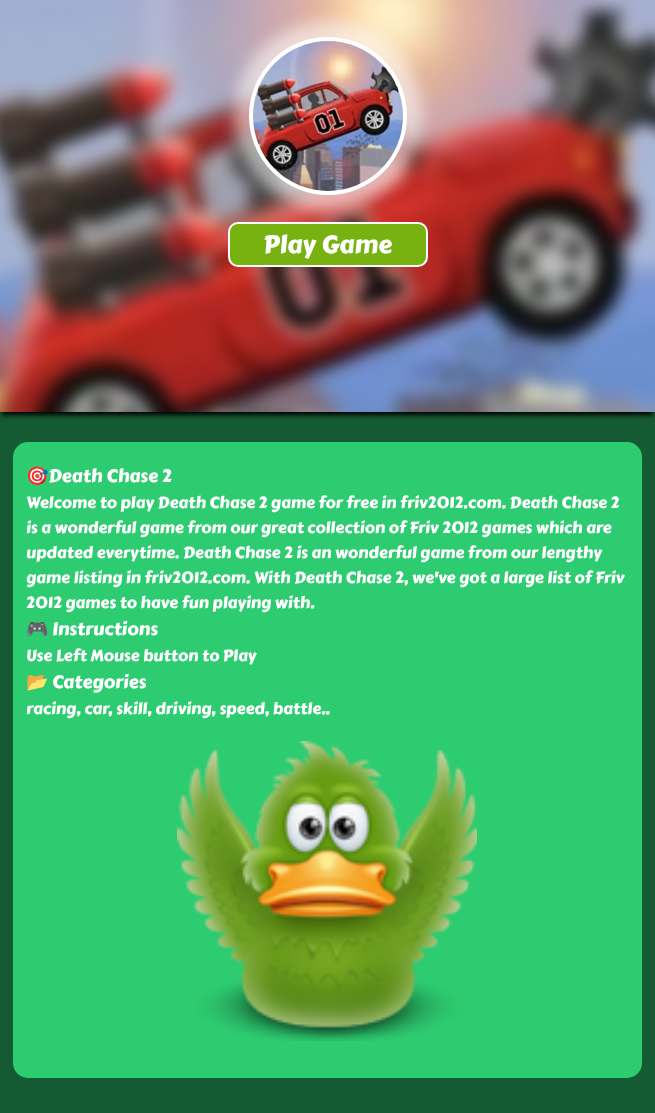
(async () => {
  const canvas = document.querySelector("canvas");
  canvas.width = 655;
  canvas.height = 1113;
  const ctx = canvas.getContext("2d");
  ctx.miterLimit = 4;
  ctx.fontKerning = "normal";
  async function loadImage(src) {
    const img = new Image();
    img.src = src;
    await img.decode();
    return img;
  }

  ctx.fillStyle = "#145a32";
  ctx.fillRect(0, 0, 655, 1113);
  ctx.fillStyle = "#000000";
  ctx.filter = "blur(2.5px)";
  ctx.beginPath();
  ctx.rect(2, -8, 651, 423);
  ctx.fill();
  ctx.filter = "none";
  ctx.drawImage(await loadImage("img/1.png"), 0, 0, 655, 412);
  ctx.fillStyle = "rgba(255, 255, 255, 0.55)";
  ctx.filter = "blur(7.5px)";
  ctx.beginPath();
  ctx.roundRect(234, 22, 188, 188, 94);
  ctx.fill();
  ctx.filter = "none";
  ctx.fillStyle = "#ffffff";
  ctx.beginPath();
  ctx.arc(328, 116, 77, 0, Math.PI * 2);
  ctx.fill();
  ctx.strokeStyle = "#ffffff";
  ctx.lineWidth = 4;
  ctx.stroke();
  ctx.drawImage(await loadImage("img/2.png"), 253, 41, 150, 150);
  ctx.fillStyle = "#77b211";
  ctx.beginPath();
  ctx.roundRect(229, 223, 198, 43, 9);
  ctx.fill();
  ctx.lineWidth = 2;
  ctx.stroke();
  ctx.fillStyle = "#2ecc71";
  ctx.beginPath();
  ctx.roundRect(13, 442, 629, 636, 15);
  ctx.fill();
  ctx.drawImage(await loadImage("img/3.png"), 177, 741, 300, 300);
  ctx.font = "25px Carter One";
  ctx.fillStyle = "#ffffff";
  ctx.fillText("Play Game", 263, 253);
  ctx.font = "18px Noto Color Emoji";
  ctx.fillText("🎯", 26, 482);
  ctx.font = "18px Carter One";
  ctx.fillText("Death Chase 2", 48, 482);
  ctx.font = "16px Carter One";
  for (const [text, x, y] of [
    ["Welcome to play Death Chase 2 game for free in friv2012.com. Death Chase 2", 26, 508],
    ["is a wonderful game from our great collection of Friv 2012 games which are", 26, 533],
    ["updated everytime. Death Chase 2 is an wonderful game from our lengthy", 26, 558],
    ["game listing in friv2012.com. With Death Chase 2, we've got a large list of Friv", 26, 583],
    ["2012 games to have fun playing with.", 26, 608],
  ]) {
    ctx.fillText(text, x, y);
  }
  ctx.font = "18px Noto Color Emoji";
  ctx.fillText("🎮", 26, 635);
  ctx.font = "18px Carter One";
  ctx.fillText("Instructions", 52, 635);
  ctx.font = "16px Carter One";
  ctx.fillText("Use Left Mouse button to Play", 26, 661);
  ctx.font = "18px Noto Color Emoji";
  ctx.fillText("📂", 26, 688);
  ctx.font = "18px Carter One";
  ctx.fillText("Categories", 52, 688);
  ctx.font = "16px Carter One";
  ctx.fillText("racing, car, skill, driving, speed, battle..", 26, 714);
})();
